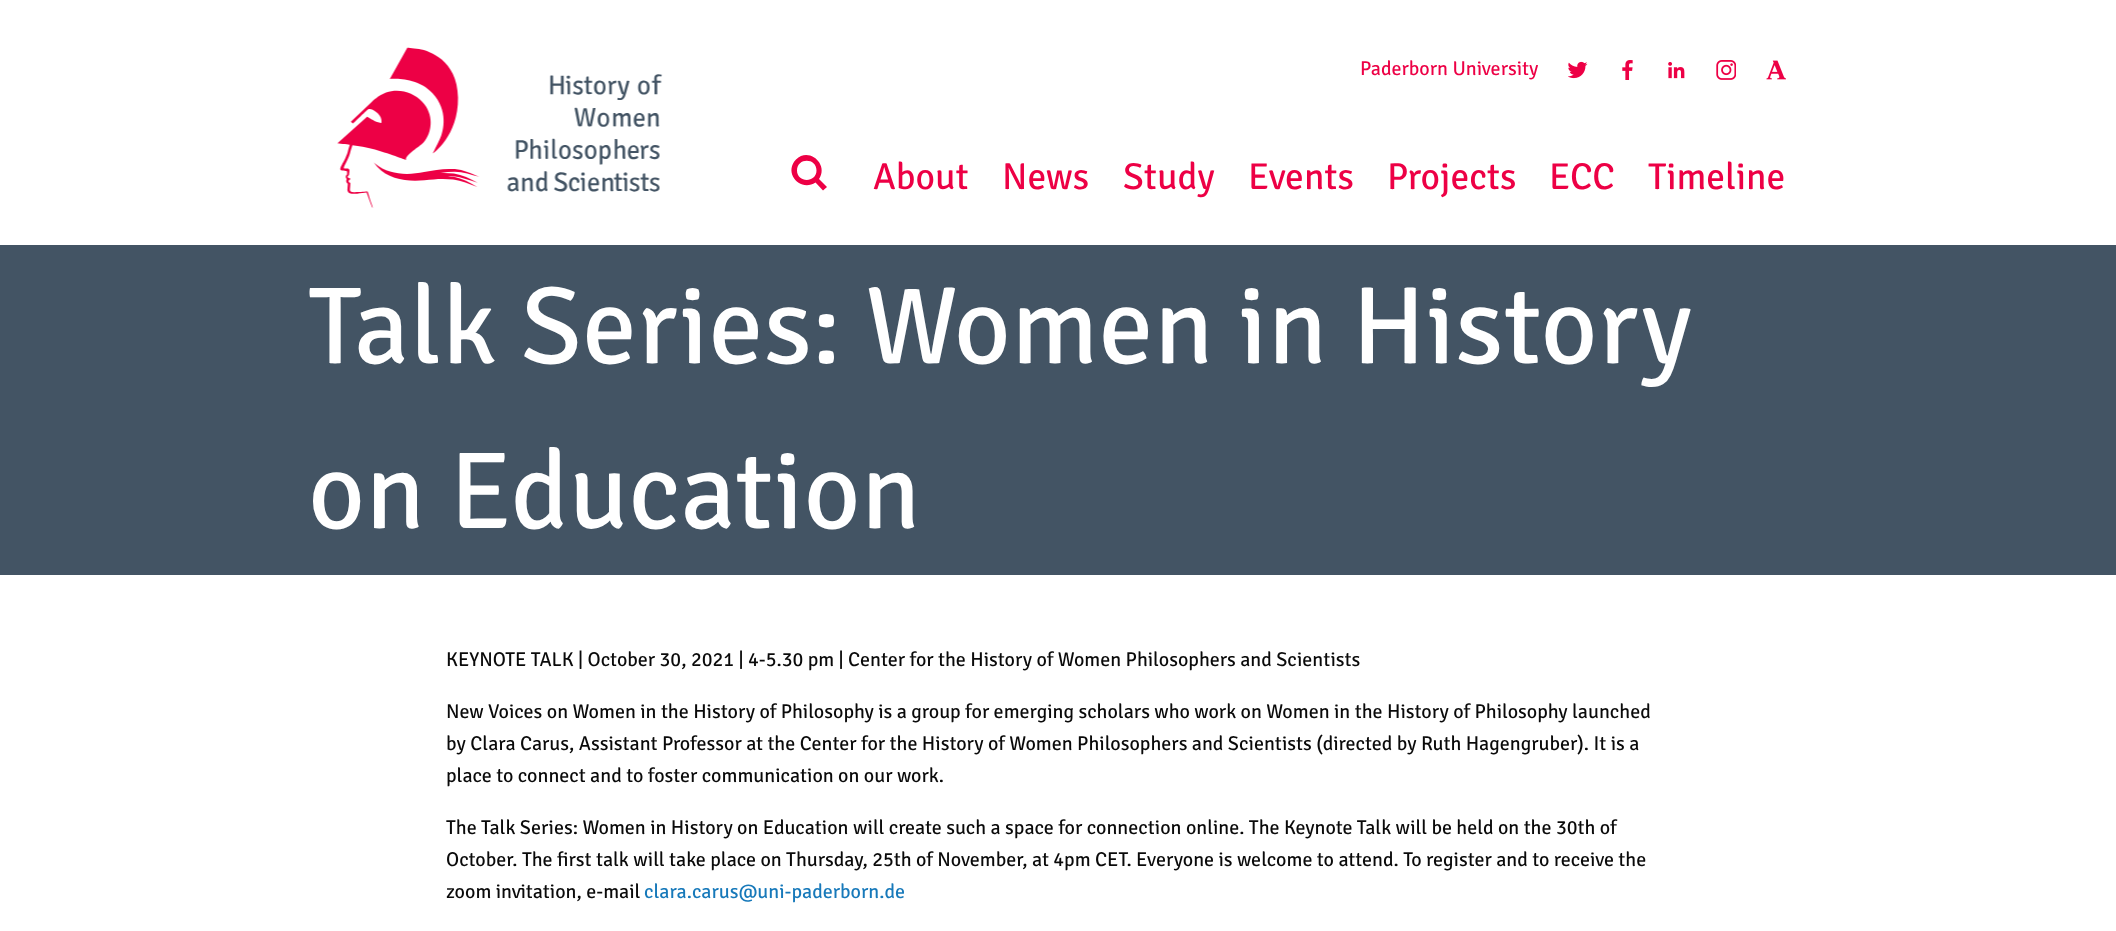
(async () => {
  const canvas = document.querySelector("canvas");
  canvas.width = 2116;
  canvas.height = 931;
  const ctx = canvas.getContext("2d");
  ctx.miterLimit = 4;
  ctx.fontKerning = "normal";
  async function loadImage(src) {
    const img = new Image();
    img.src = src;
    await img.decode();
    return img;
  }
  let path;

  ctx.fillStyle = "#ffffff";
  ctx.fillRect(0, 0, 2116, 931);
  ctx.drawImage(await loadImage("img/1.png"), 337, 47, 326, 161);
  ctx.drawImage(await loadImage("img/2.png"), 1568, 61, 20, 18);
  ctx.drawImage(await loadImage("img/3.png"), 1622, 60, 11, 20);
  ctx.drawImage(await loadImage("img/4.png"), 1668, 62, 17, 17);
  ctx.drawImage(await loadImage("img/5.png"), 1716, 60, 20, 20);
  ctx.drawImage(await loadImage("img/6.png"), 1766, 60, 20, 20);
  ctx.fillStyle = "#ed0045";
  path = new Path2D("M827 187L819 179C829 164.5 809 146.5 796 159.5C783 173 800.5 192.5 815.5 182.5L823 190.5ZM797 170.5C797 157.5 816.5 157.5 816.5 170.5C816.5 183 797 183 797 170.5Z");
  ctx.fill(path);
  ctx.fillStyle = "#435464";
  ctx.fillRect(0, 245, 2116, 330);
  ctx.font = "300 20px Signika Negative";
  ctx.fillStyle = "#ed0045";
  ctx.fillText("Paderborn University", 1360, 75);
  ctx.font = "300 37.5px Signika Negative";
  for (const [text, x, y] of [
    ["About", 873, 189],
    ["News", 1002, 189],
    ["Study", 1123, 189],
    ["Events", 1248, 189],
    ["Projects", 1387, 189],
    ["ECC", 1549, 189],
    ["Timeline", 1648, 189],
  ]) {
    ctx.fillText(text, x, y);
  }
  ctx.font = "300 110px Signika Negative";
  ctx.fillStyle = "#ffffff";
  ctx.fillText("Talk Series: Women in History", 308, 363);
  ctx.fillText("on Education", 308, 528);
  ctx.font = "300 20px Signika Negative";
  ctx.fillStyle = "#0a0a0a";
  for (const [text, x, y] of [
    ["KEYNOTE TALK | October 30, 2021 | 4-5.30 pm | Center for the History of Women Philosophers and Scientists", 446, 666],
    ["New Voices on Women in the History of Philosophy is a group for emerging scholars who work on Women in the History of Philosophy launched", 446, 718],
    ["by Clara Carus, Assistant Professor at the Center for the History of Women Philosophers and Scientists (directed by Ruth Hagengruber). It is a", 446, 750],
    ["place to connect and to foster communication on our work.", 446, 782],
    ["The Talk Series: Women in History on Education will create such a space for connection online. The Keynote Talk will be held on the 30th of", 446, 834],
    ["October. The first talk will take place on Thursday, 25th of November, at 4pm CET. Everyone is welcome to attend. To register and to receive the", 446, 866],
    ["zoom invitation, e-mail", 446, 898],
  ]) {
    ctx.fillText(text, x, y);
  }
  ctx.fillStyle = "#1779ba";
  ctx.fillText("clara.carus@uni-paderborn.de", 644, 898);
})();
